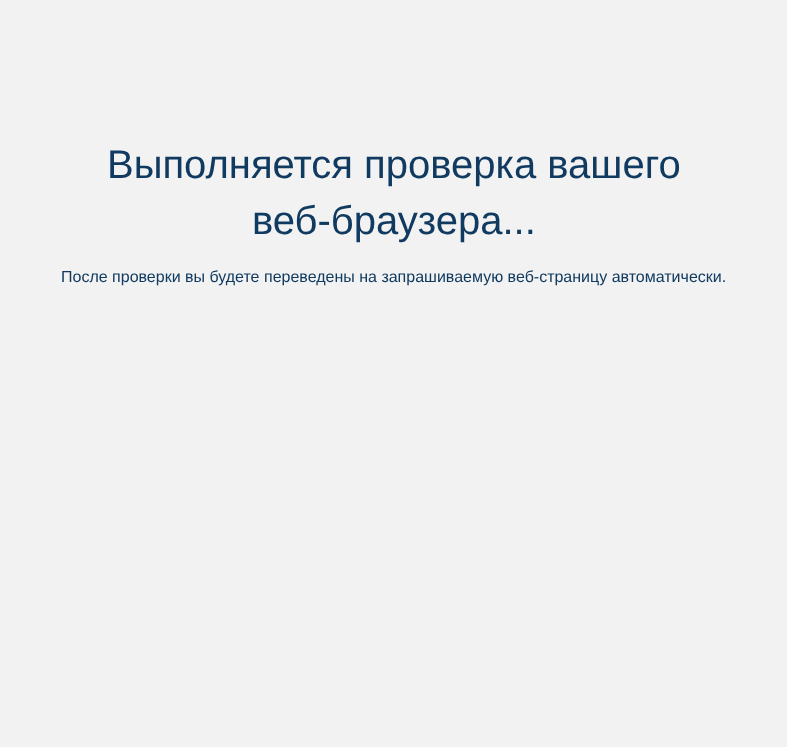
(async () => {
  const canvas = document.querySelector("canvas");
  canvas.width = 787;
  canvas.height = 747;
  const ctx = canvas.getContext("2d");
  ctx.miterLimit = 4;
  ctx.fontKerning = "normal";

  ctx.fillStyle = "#f2f2f2";
  ctx.fillRect(0, 0, 787, 747);
  ctx.font = "40px Liberation Sans";
  ctx.fillStyle = "#113a60";
  ctx.fillText("Выполняется проверка вашего", 107, 178);
  ctx.fillText("веб-браузера...", 252, 234);
  ctx.font = "16px Liberation Sans";
  ctx.fillText("После проверки вы будете переведены на запрашиваемую веб-страницу автоматически.", 61, 282);
})();
